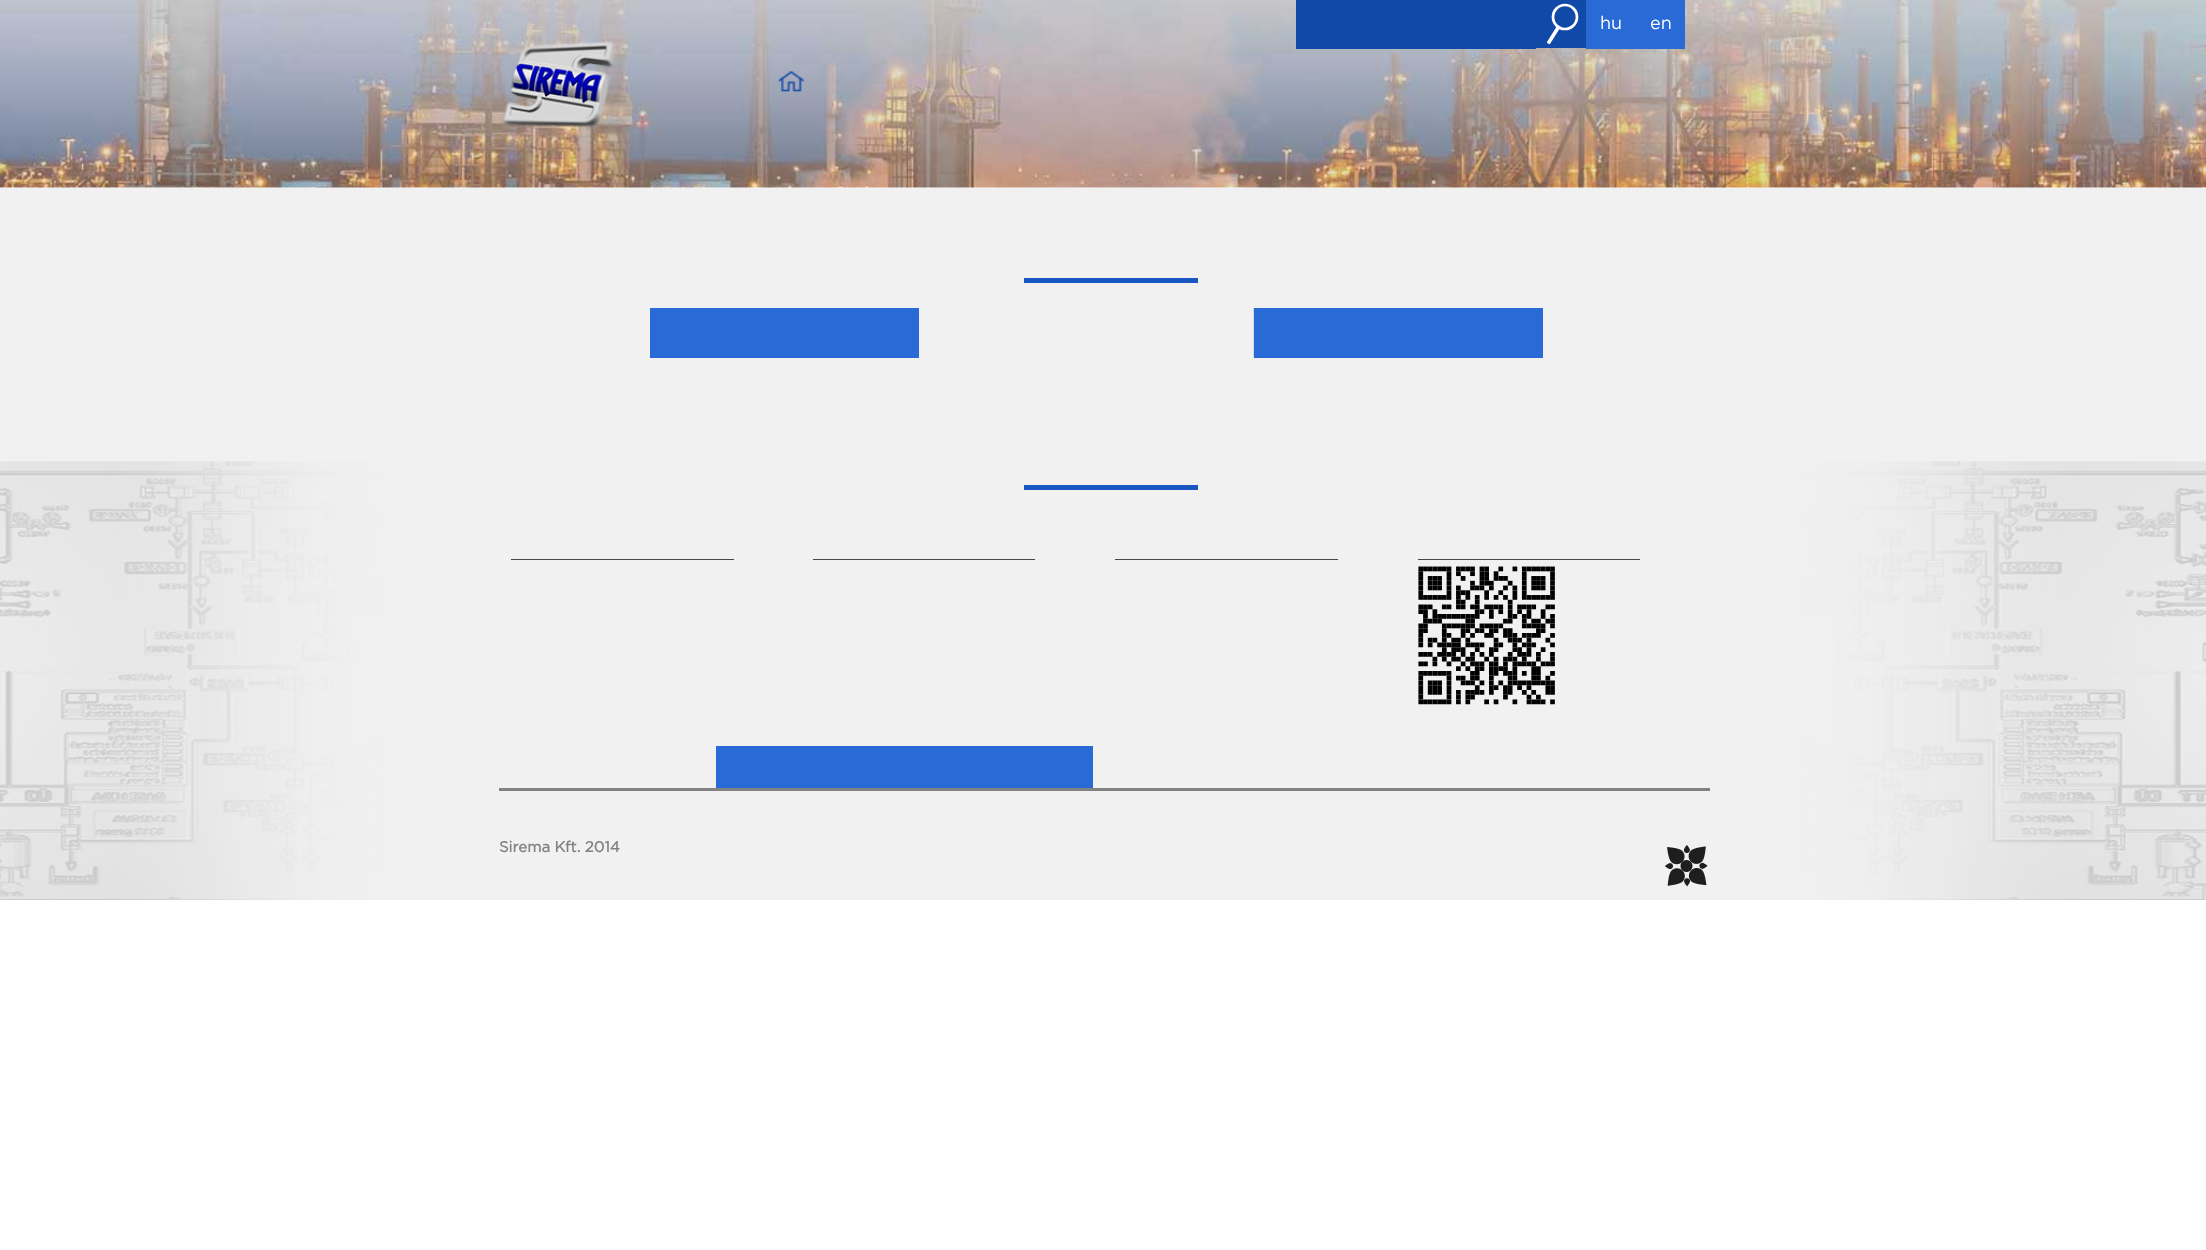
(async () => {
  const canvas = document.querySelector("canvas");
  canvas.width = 2206;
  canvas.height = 1250;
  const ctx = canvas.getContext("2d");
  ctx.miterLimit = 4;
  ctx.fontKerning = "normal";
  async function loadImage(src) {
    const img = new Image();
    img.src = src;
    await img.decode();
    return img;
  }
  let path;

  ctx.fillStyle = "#ffffff";
  ctx.fillRect(0, 0, 2206, 1250);
  ctx.fillStyle = "#f1f1f1";
  ctx.fillRect(0, 188, 2206, 712);
  ctx.drawImage(await loadImage("img/1.png"), 0, 0, 2206, 188);
  ctx.fillStyle = "#1149a9";
  ctx.fillRect(1296, 0, 240, 49);
  ctx.fillRect(1536, 0, 50, 48);
  ctx.fillStyle = "#ffffff";
  path = new Path2D("M1550 44C1550 44.5 1549 44 1548 43.5C1547 43 1546.5 42 1547 42L1557 26C1557 25.5 1558 25.5 1559 26C1560 26.5 1560.5 27.5 1560 28Z");
  ctx.fill(path);
  ctx.beginPath();
  ctx.arc(1565, 17, 12, 0, Math.PI * 2);
  ctx.strokeStyle = "#ffffff";
  ctx.lineWidth = 2.7;
  ctx.stroke();
  ctx.fillStyle = "#296ad7";
  ctx.fillRect(1586, 0, 99, 49);
  ctx.drawImage(await loadImage("img/2.png"), 502, 41, 114, 87);
  ctx.drawImage(await loadImage("img/3.png"), 778, 71, 26, 21);
  for (const [x, y, w, h, color] of [
    [1024, 278, 174, 5, "#1958c3"],
    [650, 308, 269, 50, "#296ad7"],
    [1254, 308, 289, 50, "#296ad7"],
  ]) {
    ctx.fillStyle = color;
    ctx.fillRect(x, y, w, h);
  }
  ctx.drawImage(await loadImage("img/4.png"), 1253, 308, 1, 49);
  ctx.drawImage(await loadImage("img/5.png"), 0, 461, 2206, 439);
  for (const [x, y, w, h, color] of [
    [1024, 485, 174, 5, "#1958c3"],
    [511, 559, 223, 1, "#474747"],
    [813, 559, 222, 1, "#474747"],
    [1115, 559, 223, 1, "#474747"],
    [1418, 559, 222, 1, "#474747"],
  ]) {
    ctx.fillStyle = color;
    ctx.fillRect(x, y, w, h);
  }
  ctx.drawImage(await loadImage("img/6.png"), 1418, 566, 137, 139);
  ctx.fillStyle = "#296ad7";
  ctx.fillRect(716, 746, 377, 42);
  ctx.fillStyle = "#828282";
  ctx.fillRect(499, 788, 1211, 3);
  ctx.drawImage(await loadImage("img/7.png"), 1665, 845, 43, 42);
  ctx.font = "18px Gotham";
  ctx.fillStyle = "#ffffff";
  ctx.fillText("hu", 1600, 29);
  ctx.fillText("en", 1650, 29);
  ctx.font = "bold 15px Gotham";
  ctx.fillStyle = "#828282";
  ctx.fillText("Sirema Kft. 2014", 499, 852);
})();
